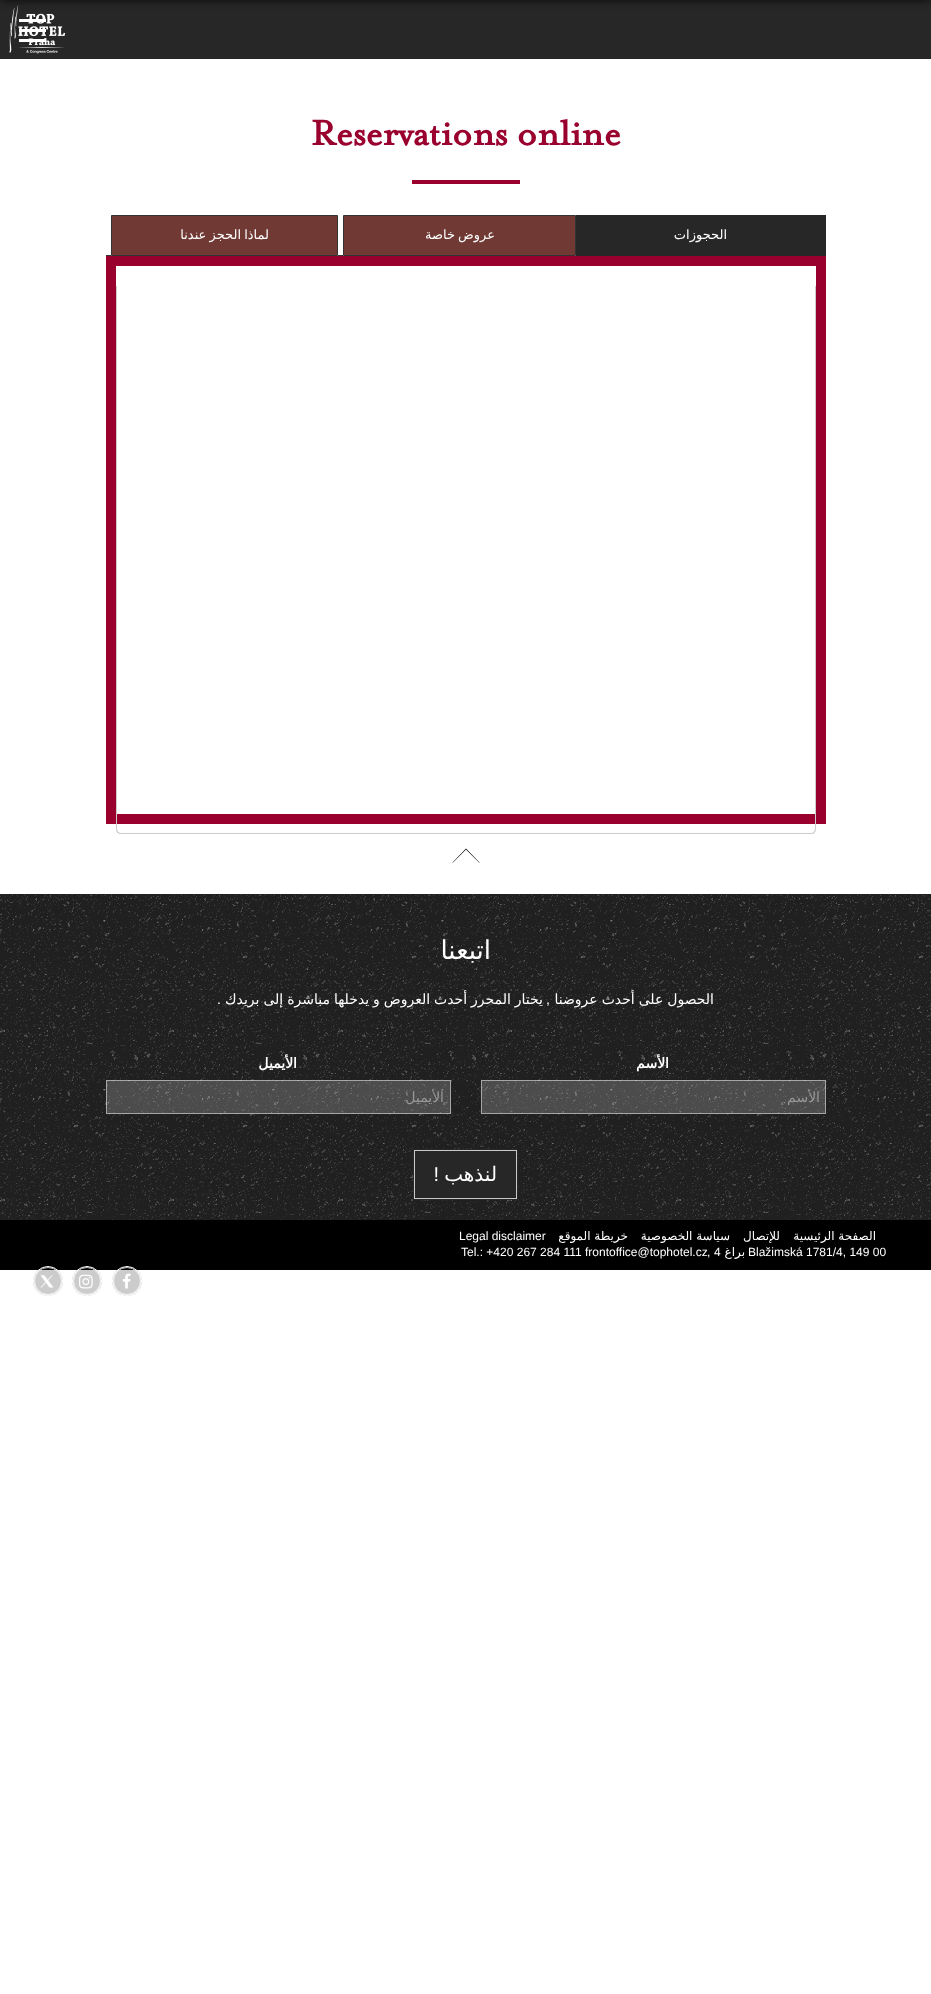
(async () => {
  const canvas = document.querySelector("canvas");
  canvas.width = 931;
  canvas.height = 1994;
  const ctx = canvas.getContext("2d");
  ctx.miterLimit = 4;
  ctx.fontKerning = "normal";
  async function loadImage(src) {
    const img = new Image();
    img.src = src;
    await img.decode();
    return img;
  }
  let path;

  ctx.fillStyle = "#ffffff";
  ctx.fillRect(0, 0, 931, 1994);
  for (const [x, y, w, h, color] of [
    [0, 0, 931, 59, "#272727"],
    [19, 19, 27, 3, "#ffffff"],
    [19, 29, 27, 3, "#ffffff"],
    [19, 39, 27, 3, "#ffffff"],
  ]) {
    ctx.fillStyle = color;
    ctx.fillRect(x, y, w, h);
  }
  ctx.drawImage(await loadImage("img/1.png"), 9, 5, 57, 49);
  ctx.fillStyle = "rgba(0, 0, 0, 0.8)";
  ctx.filter = "blur(5px)";
  ctx.beginPath();
  ctx.rect(0, -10, 931, 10);
  ctx.fill();
  ctx.filter = "none";
  for (const [x, y, w, h, color] of [
    [412, 180, 108, 4, "#9a002d"],
    [576, 215, 250, 41, "#272727"],
    [338, 255, 5, 1, "#333333"],
  ]) {
    ctx.fillStyle = color;
    ctx.fillRect(x, y, w, h);
  }
  ctx.fillStyle = "#703933";
  ctx.beginPath();
  ctx.rect(343.5, 215.5, 232, 40);
  ctx.fill();
  ctx.strokeStyle = "#333333";
  ctx.stroke();
  ctx.fillStyle = "#333333";
  ctx.fillRect(106, 255, 5, 1);
  ctx.fillStyle = "#703933";
  ctx.beginPath();
  ctx.rect(111.5, 215.5, 226, 40);
  ctx.fill();
  ctx.stroke();
  ctx.strokeStyle = "#9a002d";
  ctx.lineWidth = 10;
  ctx.strokeRect(111, 261, 710, 558);
  ctx.fillStyle = "#cccccc";
  path = new Path2D("M116 286H816V829C816 832 814 834 811 834H121C118 834 116 832 116 829ZM117 286H815V829C815 831 813 833 811 833H121C119 833 117 831 117 829Z");
  ctx.fill(path, "evenodd");
  ctx.drawImage(await loadImage("img/2.png"), 0, 894, 931, 326);
  ctx.fillStyle = "#000000";
  path = new Path2D("M466 848.5L452.5 862.5V863L466 849.5L479.5 863V862.5Z");
  ctx.fill(path);
  ctx.fillStyle = "rgba(255, 255, 255, 0.2)";
  ctx.fillRect(481, 1080, 345, 34);
  ctx.strokeStyle = "rgba(255, 255, 255, 0.5)";
  ctx.lineWidth = 1;
  ctx.strokeRect(481.5, 1080.5, 344, 33);
  ctx.fillRect(106, 1080, 345, 34);
  ctx.strokeRect(106.5, 1080.5, 344, 33);
  ctx.fillStyle = "#272727";
  ctx.fillRect(413, 1149, 105, 51);
  ctx.strokeStyle = "#c9c9c9";
  ctx.strokeRect(414.5, 1150.5, 102, 48);
  ctx.fillStyle = "#000000";
  ctx.fillRect(0, 1220, 931, 50);
  ctx.fillStyle = "rgba(0, 0, 0, 0.2)";
  ctx.beginPath();
  ctx.arc(127, 1281, 15, 0, Math.PI * 2);
  ctx.fill();
  ctx.beginPath();
  ctx.arc(127, 1281, 13.5, 0, Math.PI * 2);
  ctx.strokeStyle = "rgba(255, 255, 255, 0.75)";
  ctx.stroke();
  ctx.beginPath();
  ctx.arc(127, 1281, 14.5, 0, Math.PI * 2);
  ctx.strokeStyle = "#ffffff";
  ctx.stroke();
  ctx.drawImage(await loadImage("img/3.png"), 122, 1273, 9, 16);
  ctx.beginPath();
  ctx.arc(87, 1281, 15, 0, Math.PI * 2);
  ctx.fill();
  ctx.beginPath();
  ctx.arc(87, 1281, 13.5, 0, Math.PI * 2);
  ctx.strokeStyle = "rgba(255, 255, 255, 0.75)";
  ctx.stroke();
  ctx.beginPath();
  ctx.arc(87, 1281, 14.5, 0, Math.PI * 2);
  ctx.strokeStyle = "#ffffff";
  ctx.stroke();
  ctx.drawImage(await loadImage("img/4.png"), 79, 1274, 14, 15);
  ctx.beginPath();
  ctx.arc(48, 1281, 15, 0, Math.PI * 2);
  ctx.fill();
  ctx.beginPath();
  ctx.arc(48, 1281, 13.5, 0, Math.PI * 2);
  ctx.strokeStyle = "rgba(255, 255, 255, 0.75)";
  ctx.stroke();
  ctx.beginPath();
  ctx.arc(48, 1281, 14.5, 0, Math.PI * 2);
  ctx.strokeStyle = "#ffffff";
  ctx.stroke();
  ctx.drawImage(await loadImage("img/5.png"), 40, 1275, 14, 13);
  ctx.font = "bold 40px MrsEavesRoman";
  ctx.fillStyle = "#9a002d";
  ctx.fillText("Reservations online", 311, 145);
  ctx.direction = "rtl";
  ctx.font = "13px DejaVu Sans";
  ctx.fillStyle = "#ffffff";
  ctx.fillText("الحجوزات", 727, 239);
  ctx.wordSpacing = "-1px";
  ctx.fillText("عروض خاصة", 495, 239);
  ctx.fillText("لماذا الحجز عندنا", 269, 239);
  ctx.wordSpacing = "0px";
  ctx.font = "26px DejaVu Sans";
  ctx.fillText("اتبعنا", 491, 959);
  ctx.wordSpacing = "-0.5px";
  ctx.font = "14px DejaVu Sans";
  ctx.fillText("الحصول على أحدث عروضنا", 714, 1004);
  ctx.wordSpacing = "0px";
  ctx.font = "14px Liberation Sans";
  ctx.fillText(",", 550, 1004);
  ctx.wordSpacing = "-0.5px";
  ctx.font = "14px DejaVu Sans";
  ctx.fillText("يختار المحرر أحدث العروض و يدخلها مباشرة إلى بريدك", 543, 1004);
  ctx.wordSpacing = "0px";
  ctx.font = "14px Liberation Sans";
  ctx.fillText(".", 221, 1004);
  ctx.font = "bold 14px DejaVu Sans";
  ctx.fillText("الأسم", 669, 1068);
  ctx.save();
  ctx.beginPath();
  ctx.rect(487, 1089, 333, 16);
  ctx.clip();
  ctx.font = "14px DejaVu Sans";
  ctx.fillStyle = "#999999";
  ctx.fillText("الأسم", 820, 1102);
  ctx.restore();
  ctx.fillText("الأيميل", 297, 1068);
  ctx.font = "14px DejaVu Sans";
  ctx.fillStyle = "#999999";
  ctx.fillText("الأيميل", 444, 1102);
  ctx.font = "20px DejaVu Sans";
  ctx.fillStyle = "#ffffff";
  ctx.fillText("لنذهب", 497, 1181);
  ctx.font = "20px Liberation Sans";
  ctx.fillText("!", 439, 1181);
  ctx.font = "12px DejaVu Sans";
  for (const [text, x, y] of [
    ["الصفحة الرئيسية", 876, 1240],
    ["للإتصال", 780, 1240],
    ["سياسة الخصوصية", 730, 1240],
    ["خريطة الموقع", 628, 1240],
  ]) {
    ctx.fillText(text, x, y);
  }
  ctx.direction = "ltr";
  ctx.font = "12px Liberation Sans";
  ctx.fillText("Legal disclaimer", 459, 1240);
  ctx.fillText("Blažimská 1781/4, 149 00", 748, 1256);
  ctx.direction = "rtl";
  ctx.font = "12px DejaVu Sans";
  ctx.fillText("براغ", 745, 1256);
  ctx.direction = "ltr";
  ctx.font = "12px Liberation Sans";
  for (const [text, x, y] of [
    ["4", 714, 1256],
    [",", 707, 1256],
    ["Tel.: +420 267 284 111 frontoffice@tophotel.cz", 461, 1256],
  ]) {
    ctx.fillText(text, x, y);
  }
})();
